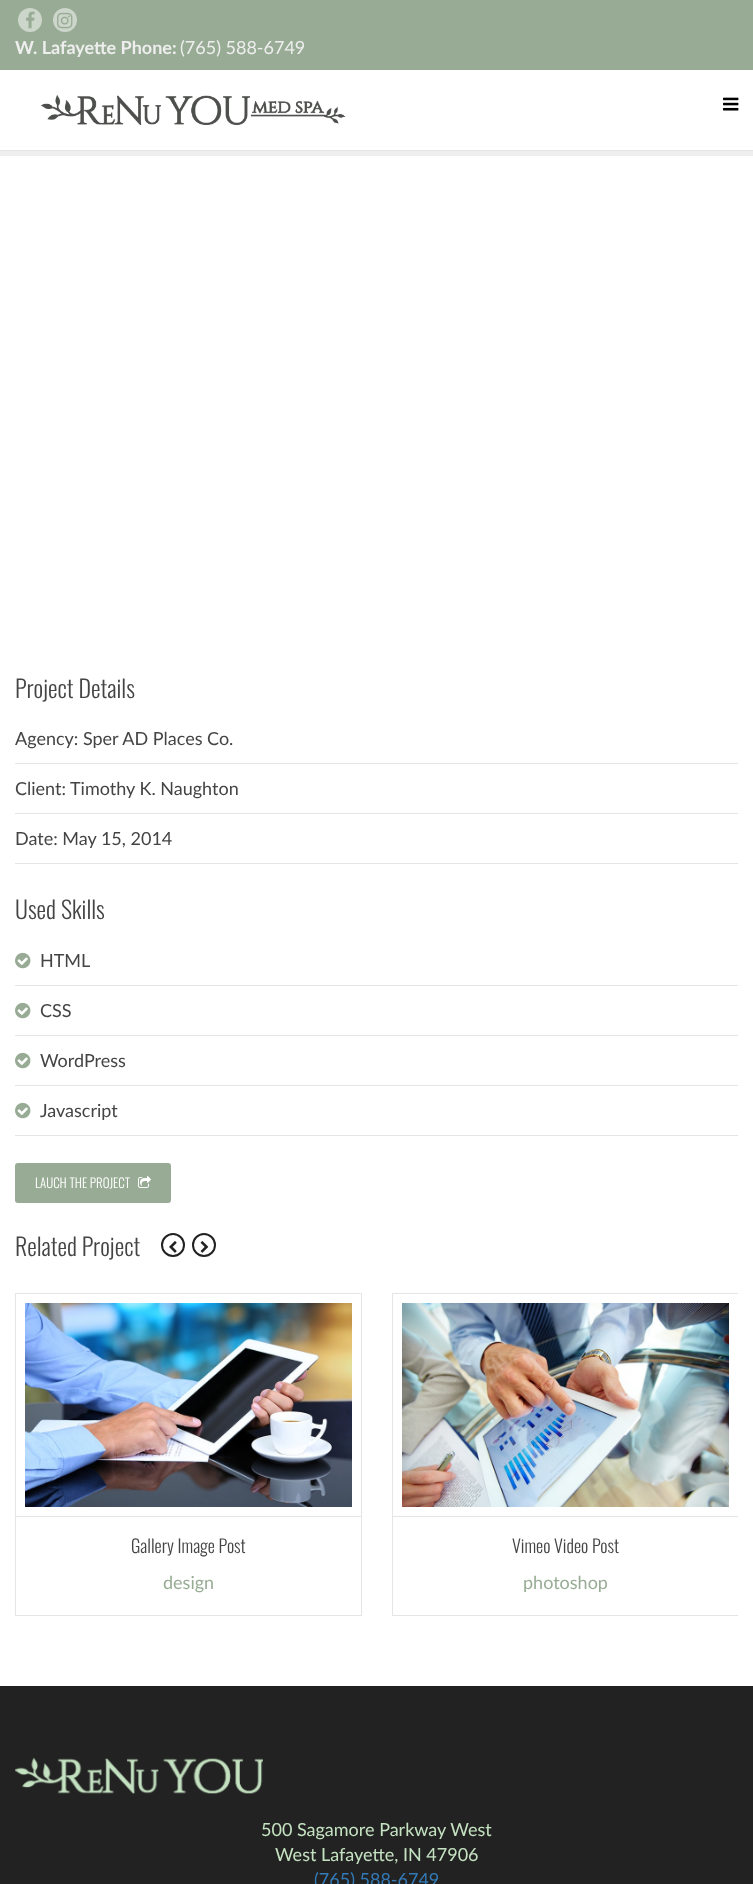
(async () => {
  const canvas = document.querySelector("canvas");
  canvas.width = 753;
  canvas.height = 1884;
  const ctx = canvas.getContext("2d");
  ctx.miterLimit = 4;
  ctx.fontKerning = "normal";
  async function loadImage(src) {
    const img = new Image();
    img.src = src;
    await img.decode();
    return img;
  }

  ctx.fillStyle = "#ffffff";
  ctx.fillRect(0, 0, 753, 1884);
  ctx.fillStyle = "#98ac95";
  ctx.fillRect(0, 0, 753, 70);
  ctx.fillStyle = "#ccd6ca";
  ctx.beginPath();
  ctx.arc(30, 20, 12, 0, Math.PI * 2);
  ctx.fill();
  ctx.drawImage(await loadImage("img/1.png"), 26, 11, 9, 18);
  ctx.beginPath();
  ctx.arc(65, 20, 12, 0, Math.PI * 2);
  ctx.fill();
  ctx.drawImage(await loadImage("img/2.png"), 57, 12, 16, 17);
  ctx.fillStyle = "#e5e5e5";
  ctx.fillRect(0, 150, 753, 1);
  ctx.drawImage(await loadImage("img/3.png"), 40, 95, 306, 30);
  ctx.drawImage(await loadImage("img/4.png"), 723, 97, 16, 14);
  for (const [x, y, w, h, color] of [
    [0, 151, 753, 5, "#eeeeee"],
    [15, 763, 723, 1, "#e5e5e5"],
    [15, 813, 723, 1, "#e5e5e5"],
    [15, 863, 723, 1, "#e5e5e5"],
    [15, 985, 723, 1, "#e5e5e5"],
  ]) {
    ctx.fillStyle = color;
    ctx.fillRect(x, y, w, h);
  }
  ctx.drawImage(await loadImage("img/5.png"), 15, 952, 16, 17);
  ctx.fillRect(15, 1035, 723, 1);
  ctx.drawImage(await loadImage("img/5.png"), 15, 1002, 16, 17);
  ctx.fillRect(15, 1085, 723, 1);
  ctx.drawImage(await loadImage("img/5.png"), 15, 1052, 16, 17);
  ctx.fillRect(15, 1135, 723, 1);
  ctx.drawImage(await loadImage("img/5.png"), 15, 1102, 16, 17);
  ctx.fillStyle = "#98ac95";
  ctx.beginPath();
  ctx.roundRect(15, 1163, 156, 40, 3);
  ctx.fill();
  ctx.drawImage(await loadImage("img/6.png"), 138, 1176, 13, 12);
  ctx.beginPath();
  ctx.arc(173, 1245, 11, 0, Math.PI * 2);
  ctx.strokeStyle = "#222222";
  ctx.lineWidth = 2;
  ctx.stroke();
  ctx.drawImage(await loadImage("img/7.png"), 169, 1241, 8, 12);
  ctx.beginPath();
  ctx.arc(204, 1245, 11, 0, Math.PI * 2);
  ctx.stroke();
  ctx.drawImage(await loadImage("img/8.png"), 200, 1241, 9, 12);
  ctx.strokeStyle = "#e5e5e5";
  ctx.lineWidth = 1;
  ctx.strokeRect(15.5, 1293.5, 346, 322);
  ctx.fillStyle = "#e5e5e5";
  ctx.fillRect(16, 1516, 345, 1);
  ctx.drawImage(await loadImage("img/9.png"), 25, 1303, 327, 204);
  ctx.save();
  ctx.beginPath();
  ctx.rect(15, 1293, 723, 323);
  ctx.clip();
  ctx.strokeRect(392.5, 1293.5, 346, 322);
  ctx.restore();
  ctx.fillRect(393, 1516, 345, 1);
  ctx.drawImage(await loadImage("img/10.png"), 402, 1303, 327, 204);
  ctx.fillStyle = "#222222";
  ctx.fillRect(0, 1686, 753, 198);
  ctx.drawImage(await loadImage("img/11.png"), 15, 1757, 248, 37);
  ctx.font = "bold 18px Lato";
  ctx.fillStyle = "#eeeeee";
  ctx.fillText("W. Lafayette Phone:", 15, 54);
  ctx.font = "18px Lato";
  ctx.fillText("(765) 588-6749", 180, 54);
  ctx.font = "300 24px Oswald";
  ctx.fillStyle = "#444444";
  ctx.fillText("Project Details", 15, 698);
  ctx.font = "18px Lato";
  for (const [text, x, y] of [
    ["Agency: Sper AD Places Co.", 15, 745],
    ["Client: Timothy K. Naughton", 15, 795],
    ["Date: May 15, 2014", 15, 845],
  ]) {
    ctx.fillText(text, x, y);
  }
  ctx.font = "300 24px Oswald";
  ctx.fillText("Used Skills", 15, 919);
  ctx.font = "18px Lato";
  for (const [text, x, y] of [
    ["HTML", 40, 967],
    ["CSS", 40, 1017],
    ["WordPress", 40, 1067],
    ["Javascript", 40, 1117],
  ]) {
    ctx.fillText(text, x, y);
  }
  ctx.font = "300 13px Oswald";
  ctx.fillStyle = "#ffffff";
  ctx.fillText("LAUCH THE PROJECT", 35, 1188);
  ctx.font = "300 24px Oswald";
  ctx.fillStyle = "#444444";
  ctx.fillText("Related Project", 15, 1256);
  ctx.font = "300 18px Oswald";
  ctx.fillText("Gallery Image Post", 131, 1553);
  ctx.font = "18px Lato";
  ctx.fillStyle = "#98ac95";
  ctx.fillText("design", 163, 1589);
  ctx.font = "300 18px Oswald";
  ctx.fillStyle = "#444444";
  ctx.fillText("Vimeo Video Post", 512, 1553);
  ctx.font = "18px Lato";
  ctx.fillStyle = "#98ac95";
  ctx.fillText("photoshop", 523, 1589);
  ctx.fillStyle = "#c4e2c1";
  ctx.fillText("500 Sagamore Parkway West", 261, 1836);
  ctx.fillText("West Lafayette, IN 47906", 275, 1861);
  ctx.fillStyle = "#337ab7";
  ctx.fillText("(765) 588-6749", 314, 1886);
})();
